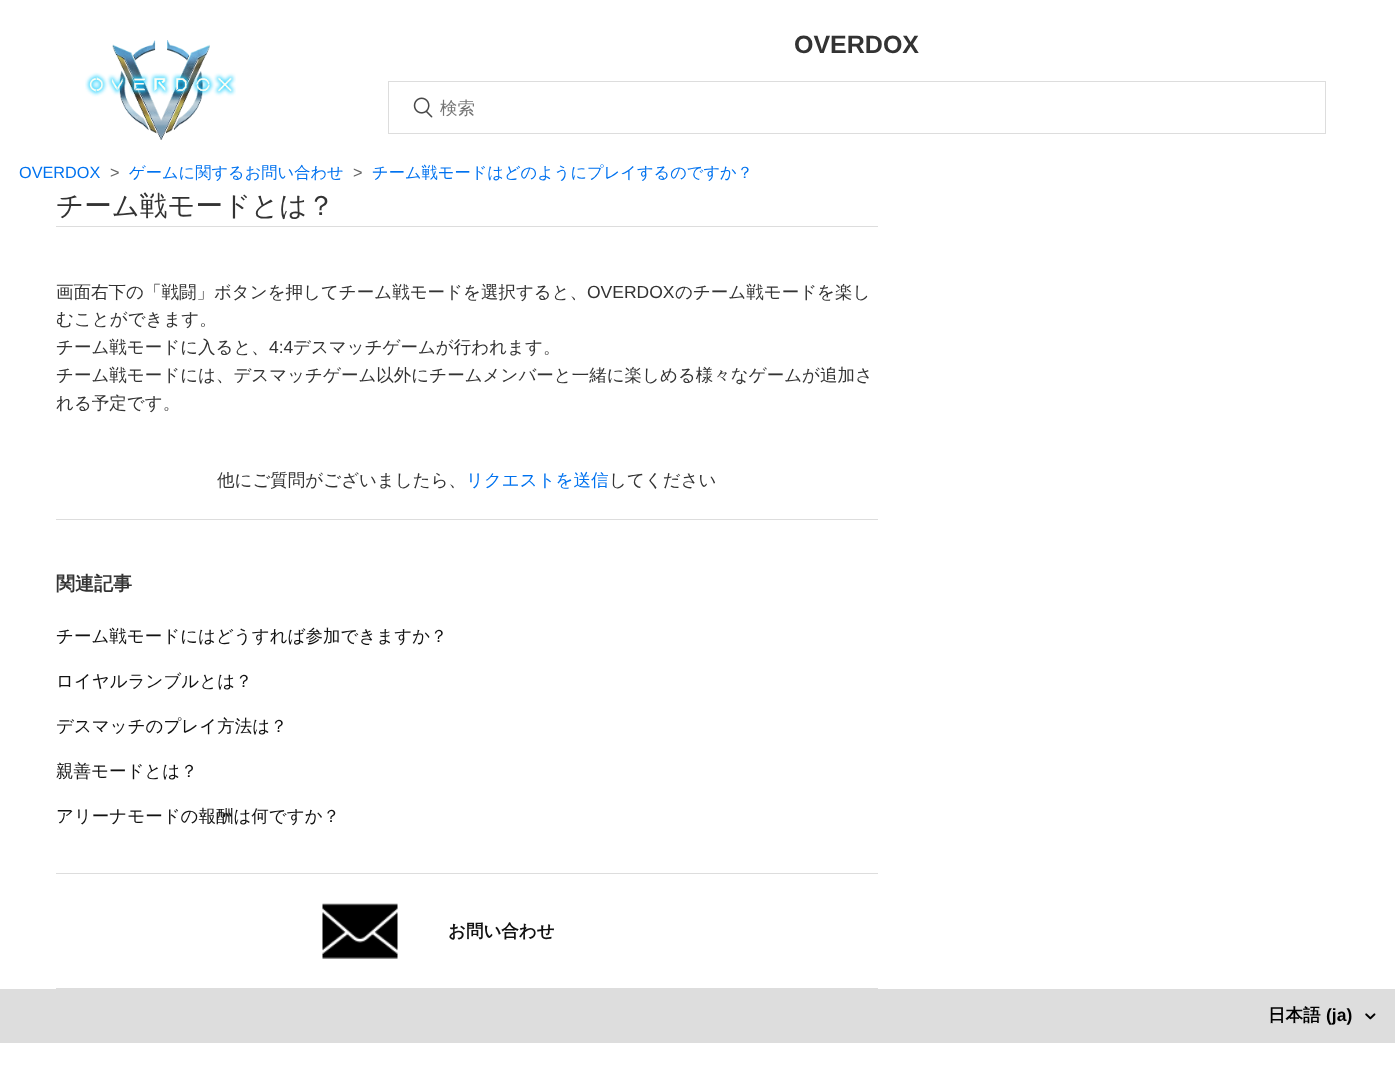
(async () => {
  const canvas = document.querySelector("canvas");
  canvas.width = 1395;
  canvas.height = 1071;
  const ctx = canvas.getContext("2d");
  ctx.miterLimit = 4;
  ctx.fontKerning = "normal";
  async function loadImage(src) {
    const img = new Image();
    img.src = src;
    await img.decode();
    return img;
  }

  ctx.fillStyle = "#ffffff";
  ctx.fillRect(0, 0, 1395, 1071);
  ctx.strokeStyle = "#dddddd";
  ctx.strokeRect(388.5, 81.5, 937, 52);
  ctx.drawImage(await loadImage("img/1.png"), 413, 97, 20, 21);
  for (const [x, y, w, h, color] of [
    [56, 226, 822, 1, "#dddddd"],
    [56, 519, 822, 1, "#dddddd"],
    [56, 873, 822, 1, "#dddddd"],
    [56, 988, 822, 1, "#dddddd"],
  ]) {
    ctx.fillStyle = color;
    ctx.fillRect(x, y, w, h);
  }
  ctx.drawImage(await loadImage("img/2.png"), 322, 903, 76, 56);
  ctx.drawImage(await loadImage("img/3.png"), 85, 40, 151, 100);
  ctx.fillRect(0, 989, 1395, 54);
  ctx.drawImage(await loadImage("img/4.png"), 1365, 1013, 11, 7);
  ctx.font = "bold 25px Liberation Sans";
  ctx.fillStyle = "#333333";
  ctx.fillText("OVERDOX", 794, 53);
  ctx.font = "500 17.5px WenQuanYi Zen Hei";
  ctx.fillStyle = "#757575";
  ctx.fillText("検索", 440, 114);
  ctx.font = "16.25px Liberation Sans";
  ctx.fillStyle = "#0072ef";
  ctx.fillText("OVERDOX", 19, 178);
  ctx.fillStyle = "#666666";
  ctx.fillText(">", 110, 178);
  ctx.font = "500 16.25px WenQuanYi Zen Hei";
  ctx.fillStyle = "#0072ef";
  ctx.fillText("ゲームに関するお問い合わせ", 129, 178);
  ctx.font = "16.25px Liberation Sans";
  ctx.fillStyle = "#666666";
  ctx.fillText(">", 353, 178);
  ctx.font = "500 16.25px WenQuanYi Zen Hei";
  ctx.fillStyle = "#0072ef";
  ctx.fillText("チーム戦モードはどのようにプレイするのですか？", 372, 178);
  ctx.font = "500 27.5px WenQuanYi Zen Hei";
  ctx.fillStyle = "#333333";
  ctx.fillText("チーム戦モードとは？", 56, 215);
  ctx.font = "500 17.5px WenQuanYi Zen Hei";
  ctx.fillText("画面右下の「戦闘」ボタンを押してチーム戦モードを選択すると、", 56, 298);
  ctx.font = "17.5px Liberation Sans";
  ctx.fillText("OVERDOX", 587, 298);
  ctx.font = "500 17.5px WenQuanYi Zen Hei";
  for (const [text, x, y] of [
    ["のチーム戦モードを楽し", 675, 298],
    ["むことができます。", 56, 325],
    ["チーム戦モードに入ると、", 56, 353],
  ]) {
    ctx.fillText(text, x, y);
  }
  ctx.font = "17.5px Liberation Sans";
  ctx.fillText("4:4", 269, 353);
  ctx.font = "500 17.5px WenQuanYi Zen Hei";
  for (const [text, x, y] of [
    ["デスマッチゲームが行われます。", 293, 353],
    ["チーム戦モードには、デスマッチゲーム以外にチームメンバーと一緒に楽しめる様々なゲームが追加さ", 56, 381],
    ["れる予定です。", 56, 409],
    ["他にご質問がございましたら、", 217, 486],
  ]) {
    ctx.fillText(text, x, y);
  }
  ctx.fillStyle = "#0072ef";
  ctx.fillText("リクエストを送信", 466, 486);
  ctx.fillStyle = "#333333";
  ctx.fillText("してください", 609, 486);
  ctx.font = "bold 19px WenQuanYi Zen Hei";
  ctx.fillText("関連記事", 56, 590);
  ctx.font = "500 17.5px WenQuanYi Zen Hei";
  ctx.fillStyle = "#111111";
  for (const [text, x, y] of [
    ["チーム戦モードにはどうすれば参加できますか？", 56, 642],
    ["ロイヤルランブルとは？", 56, 687],
    ["デスマッチのプレイ方法は？", 56, 732],
    ["親善モードとは？", 56, 777],
    ["アリーナモードの報酬は何ですか？", 56, 822],
  ]) {
    ctx.fillText(text, x, y);
  }
  ctx.font = "bold 17.5px WenQuanYi Zen Hei";
  ctx.fillText("お問い合わせ", 448, 937);
  ctx.fillStyle = "#000000";
  ctx.fillText("日本語", 1268, 1021);
  ctx.font = "bold 17.5px Liberation Sans";
  ctx.fillText("(ja)", 1326, 1021);
})();
